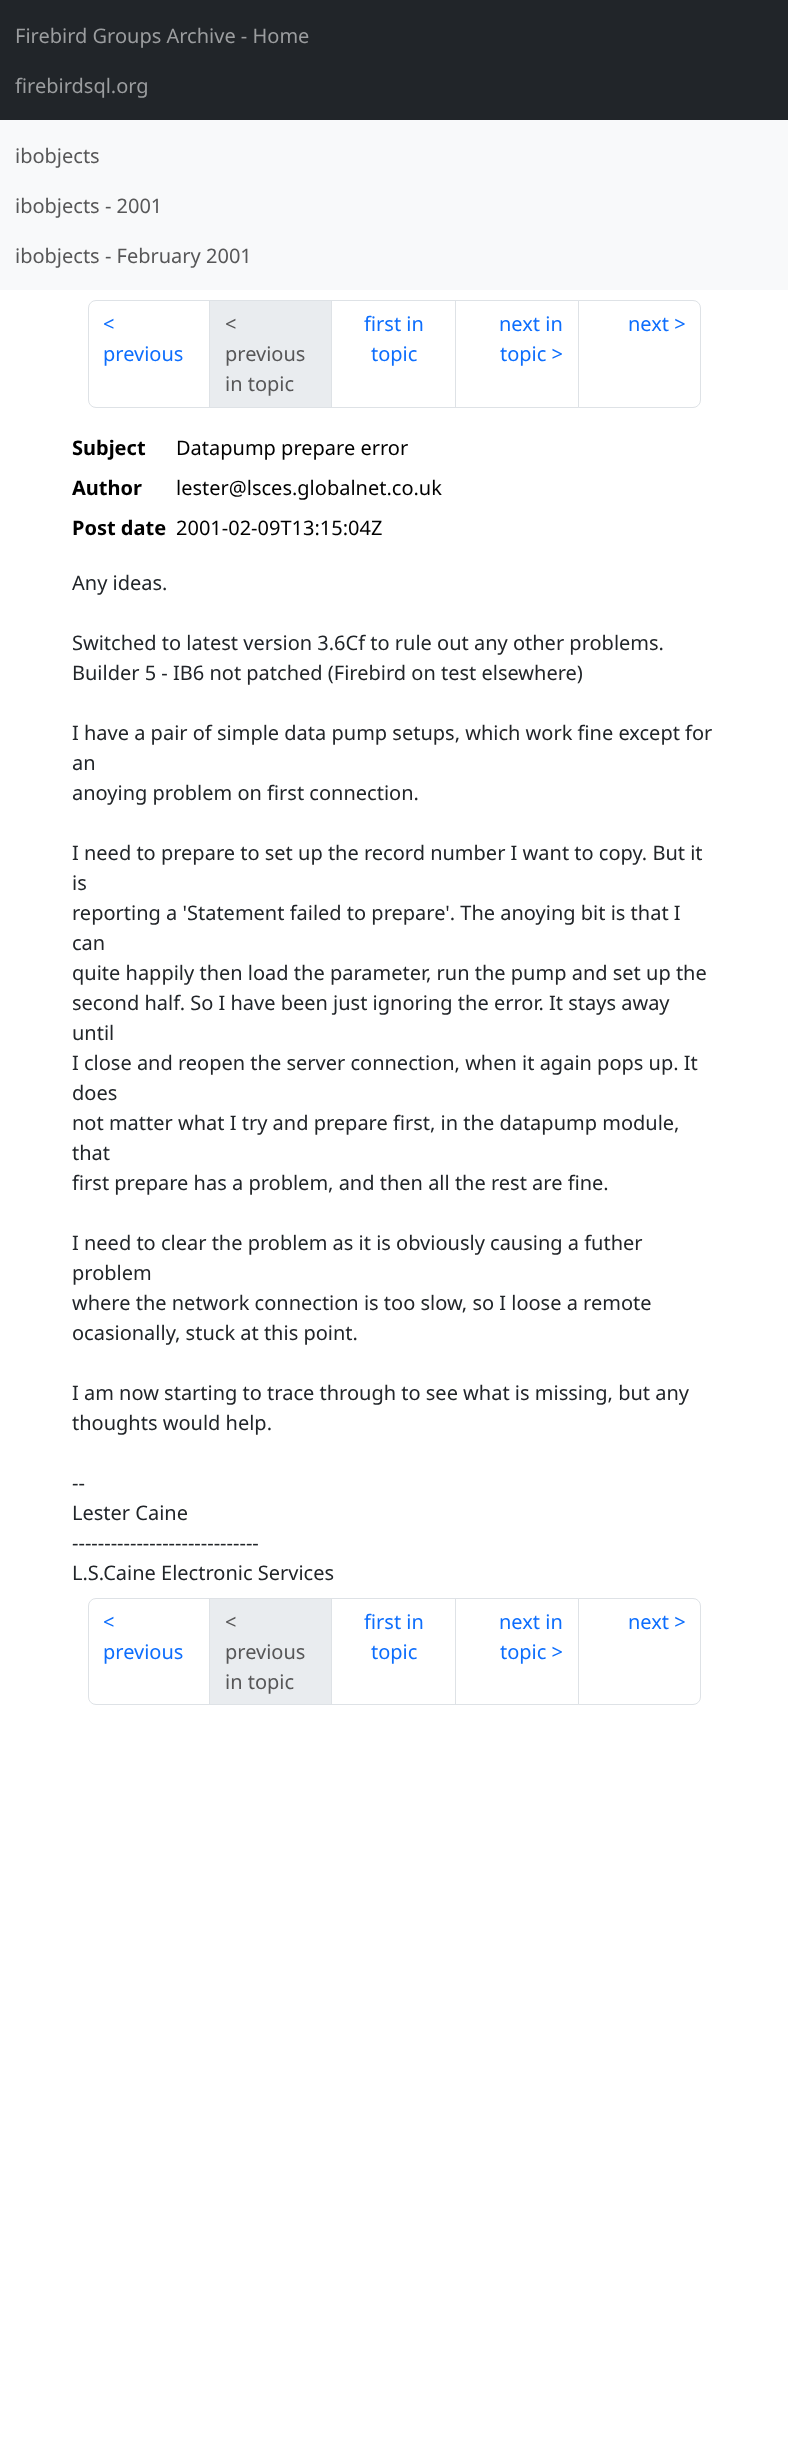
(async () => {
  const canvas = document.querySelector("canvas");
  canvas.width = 788;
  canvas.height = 2455;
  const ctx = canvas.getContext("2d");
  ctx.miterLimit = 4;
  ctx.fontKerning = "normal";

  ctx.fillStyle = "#ffffff";
  ctx.fillRect(0, 0, 788, 2455);
  ctx.fillStyle = "#212529";
  ctx.fillRect(0, 0, 788, 120);
  ctx.fillStyle = "#f8f9fa";
  ctx.fillRect(0, 120, 788, 170);
  ctx.beginPath();
  ctx.roundRect(88.5, 300.5, 121, 107, [7.5, 0, 0, 7.5]);
  ctx.strokeStyle = "#dee2e6";
  ctx.stroke();
  ctx.fillStyle = "#e9ecef";
  ctx.fillRect(210, 301, 121, 106);
  ctx.strokeRect(209.5, 300.5, 123, 107);
  ctx.fillStyle = "#ffffff";
  ctx.fillRect(332, 301, 1, 106);
  ctx.strokeRect(331.5, 300.5, 124, 107);
  ctx.strokeRect(455.5, 300.5, 123, 107);
  ctx.beginPath();
  ctx.roundRect(578.5, 300.5, 122, 107, [0, 7.5, 7.5, 0]);
  ctx.fill();
  ctx.stroke();
  ctx.beginPath();
  ctx.roundRect(88.5, 1598.5, 121, 106, [7.5, 0, 0, 7.5]);
  ctx.stroke();
  ctx.fillStyle = "#e9ecef";
  ctx.fillRect(210, 1599, 121, 105);
  ctx.strokeRect(209.5, 1598.5, 123, 106);
  ctx.fillStyle = "#ffffff";
  ctx.fillRect(332, 1599, 1, 105);
  ctx.strokeRect(331.5, 1598.5, 124, 106);
  ctx.strokeRect(455.5, 1598.5, 123, 106);
  ctx.beginPath();
  ctx.roundRect(578.5, 1598.5, 122, 106, [0, 7.5, 7.5, 0]);
  ctx.fill();
  ctx.stroke();
  ctx.font = "20px Noto Sans";
  ctx.fillStyle = "#9b9d9f";
  ctx.fillText("Firebird Groups Archive - Home", 15, 43);
  ctx.fillText("firebirdsql.org", 15, 93);
  ctx.fillStyle = "#575758";
  for (const [text, x, y] of [
    ["ibobjects", 15, 163],
    ["ibobjects - 2001", 15, 213],
    ["ibobjects - February 2001", 15, 263],
  ]) {
    ctx.fillText(text, x, y);
  }
  ctx.fillStyle = "#0d6efd";
  ctx.fillText("<", 103, 331);
  ctx.fillText("previous", 103, 361);
  ctx.fillStyle = "#575758";
  for (const [text, x, y] of [
    ["<", 225, 331],
    ["previous", 225, 361],
    ["in topic", 225, 391],
  ]) {
    ctx.fillText(text, x, y);
  }
  ctx.fillStyle = "#0d6efd";
  for (const [text, x, y] of [
    ["first in", 364, 331],
    ["topic", 371, 361],
    ["next in", 499, 331],
    ["topic >", 500, 361],
    ["next >", 628, 331],
  ]) {
    ctx.fillText(text, x, y);
  }
  ctx.font = "bold 20px Noto Sans";
  ctx.fillStyle = "#000000";
  ctx.fillText("Subject", 72, 455);
  ctx.font = "20px Noto Sans";
  ctx.fillText("Datapump prepare error", 176, 455);
  ctx.font = "bold 20px Noto Sans";
  ctx.fillText("Author", 72, 495);
  ctx.font = "20px Noto Sans";
  ctx.fillText("lester@lsces.globalnet.co.uk", 176, 495);
  ctx.font = "bold 20px Noto Sans";
  ctx.fillText("Post date", 72, 535);
  ctx.font = "20px Noto Sans";
  ctx.fillText("2001-02-09T13:15:04Z", 176, 535);
  ctx.fillStyle = "#212529";
  for (const [text, x, y] of [
    ["Any ideas.", 72, 590],
    ["Switched to latest version 3.6Cf to rule out any other problems.", 72, 650],
    ["Builder 5 - IB6 not patched (Firebird on test elsewhere)", 72, 680],
    ["I have a pair of simple data pump setups, which work fine except for", 72, 740],
    ["an", 72, 770],
    ["anoying problem on first connection.", 72, 800],
    ["I need to prepare to set up the record number I want to copy. But it", 72, 860],
    ["is", 72, 890],
    ["reporting a 'Statement failed to prepare'. The anoying bit is that I", 72, 920],
    ["can", 72, 950],
    ["quite happily then load the parameter, run the pump and set up the", 72, 980],
    ["second half. So I have been just ignoring the error. It stays away", 72, 1010],
    ["until", 72, 1040],
    ["I close and reopen the server connection, when it again pops up. It", 72, 1070],
    ["does", 72, 1100],
    ["not matter what I try and prepare first, in the datapump module,", 72, 1130],
    ["that", 72, 1160],
    ["first prepare has a problem, and then all the rest are fine.", 72, 1190],
    ["I need to clear the problem as it is obviously causing a futher", 72, 1250],
    ["problem", 72, 1280],
    ["where the network connection is too slow, so I loose a remote", 72, 1310],
    ["ocasionally, stuck at this point.", 72, 1340],
    ["I am now starting to trace through to see what is missing, but any", 72, 1400],
    ["thoughts would help.", 72, 1430],
    ["--", 72, 1490],
    ["Lester Caine", 72, 1520],
    ["-----------------------------", 72, 1550],
    ["L.S.Caine Electronic Services", 72, 1580],
  ]) {
    ctx.fillText(text, x, y);
  }
  ctx.fillStyle = "#0d6efd";
  ctx.fillText("<", 103, 1629);
  ctx.fillText("previous", 103, 1659);
  ctx.fillStyle = "#575758";
  for (const [text, x, y] of [
    ["<", 225, 1629],
    ["previous", 225, 1659],
    ["in topic", 225, 1689],
  ]) {
    ctx.fillText(text, x, y);
  }
  ctx.fillStyle = "#0d6efd";
  for (const [text, x, y] of [
    ["first in", 364, 1629],
    ["topic", 371, 1659],
    ["next in", 499, 1629],
    ["topic >", 500, 1659],
    ["next >", 628, 1629],
  ]) {
    ctx.fillText(text, x, y);
  }
})();
